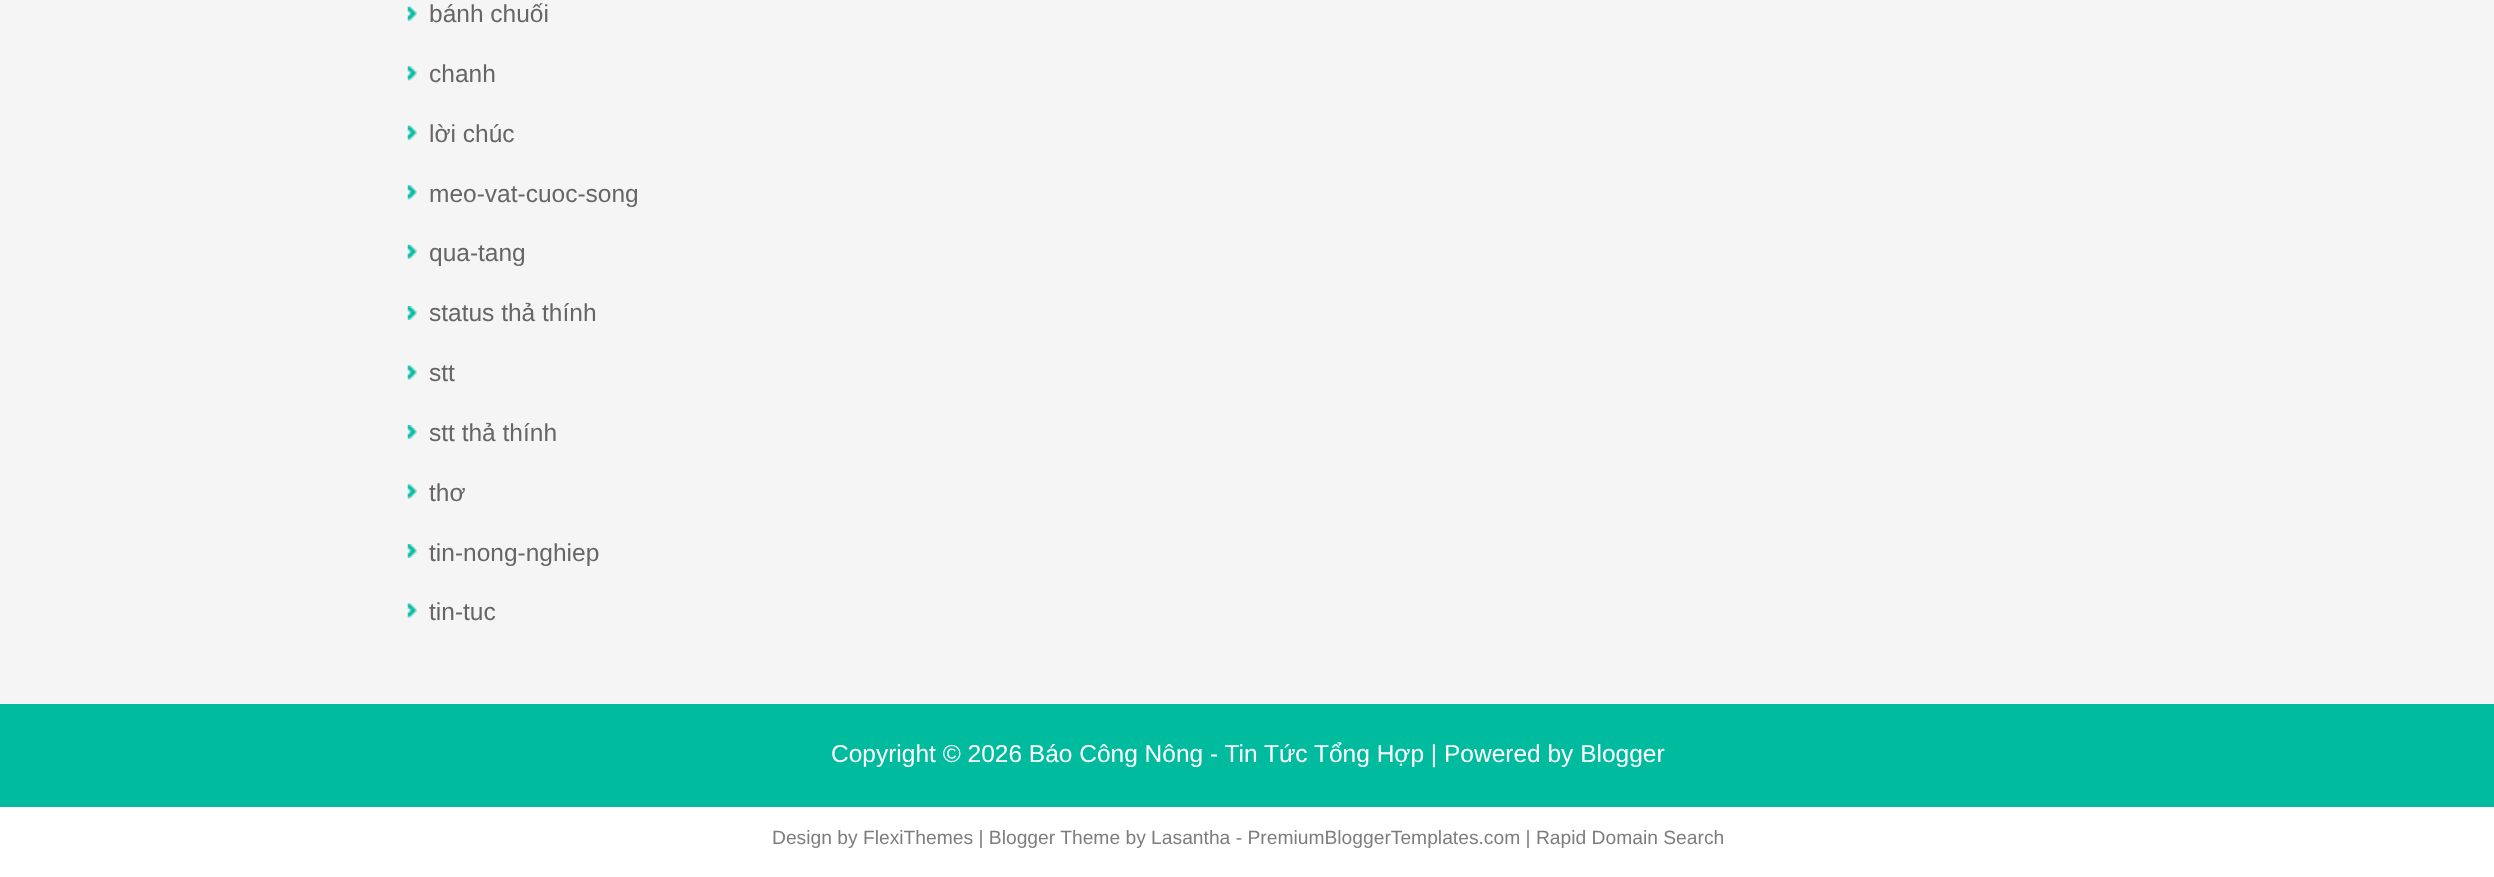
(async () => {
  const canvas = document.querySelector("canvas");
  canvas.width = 2494;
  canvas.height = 877;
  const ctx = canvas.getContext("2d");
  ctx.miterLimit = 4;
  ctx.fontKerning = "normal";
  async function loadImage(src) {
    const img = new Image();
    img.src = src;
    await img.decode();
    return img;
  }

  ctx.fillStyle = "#ffffff";
  ctx.fillRect(0, 0, 2494, 877);
  ctx.fillStyle = "#f5f5f5";
  ctx.fillRect(0, 0, 2494, 704);
  ctx.drawImage(await loadImage("img/1.png"), 407, 6, 10, 15);
  ctx.drawImage(await loadImage("img/2.png"), 407, 66, 10, 15);
  ctx.drawImage(await loadImage("img/1.png"), 407, 125, 10, 15);
  ctx.drawImage(await loadImage("img/2.png"), 407, 185, 10, 15);
  ctx.drawImage(await loadImage("img/1.png"), 407, 244, 10, 15);
  ctx.drawImage(await loadImage("img/3.png"), 407, 306, 10, 14);
  ctx.drawImage(await loadImage("img/4.png"), 407, 365, 10, 15);
  ctx.drawImage(await loadImage("img/3.png"), 407, 425, 10, 14);
  ctx.drawImage(await loadImage("img/4.png"), 407, 484, 10, 15);
  ctx.drawImage(await loadImage("img/3.png"), 407, 544, 10, 14);
  ctx.drawImage(await loadImage("img/4.png"), 407, 603, 10, 15);
  ctx.fillStyle = "#01bb9f";
  ctx.fillRect(0, 704, 2494, 103);
  ctx.font = "24.5px Arimo";
  ctx.fillStyle = "#666666";
  for (const [text, x, y] of [
    ["bánh chuối", 429, 22],
    ["chanh", 429, 82],
    ["lời chúc", 429, 142],
    ["meo-vat-cuoc-song", 429, 202],
    ["qua-tang", 429, 261],
    ["status thả thính", 429, 321],
    ["stt", 429, 381],
    ["stt thả thính", 429, 441],
    ["thơ", 429, 501],
    ["tin-nong-nghiep", 429, 561],
    ["tin-tuc", 429, 620],
  ]) {
    ctx.fillText(text, x, y);
  }
  ctx.fillStyle = "#ffffff";
  ctx.fillText("Copyright © 2026 Báo Công Nông - Tin Tức Tổng Hợp | Powered by Blogger", 831, 762);
  ctx.font = "19.25px Arimo";
  ctx.fillStyle = "#7d7d7d";
  ctx.fillText("Design by FlexiThemes | Blogger Theme by Lasantha - PremiumBloggerTemplates.com | Rapid Domain Search", 772, 844);
})();
